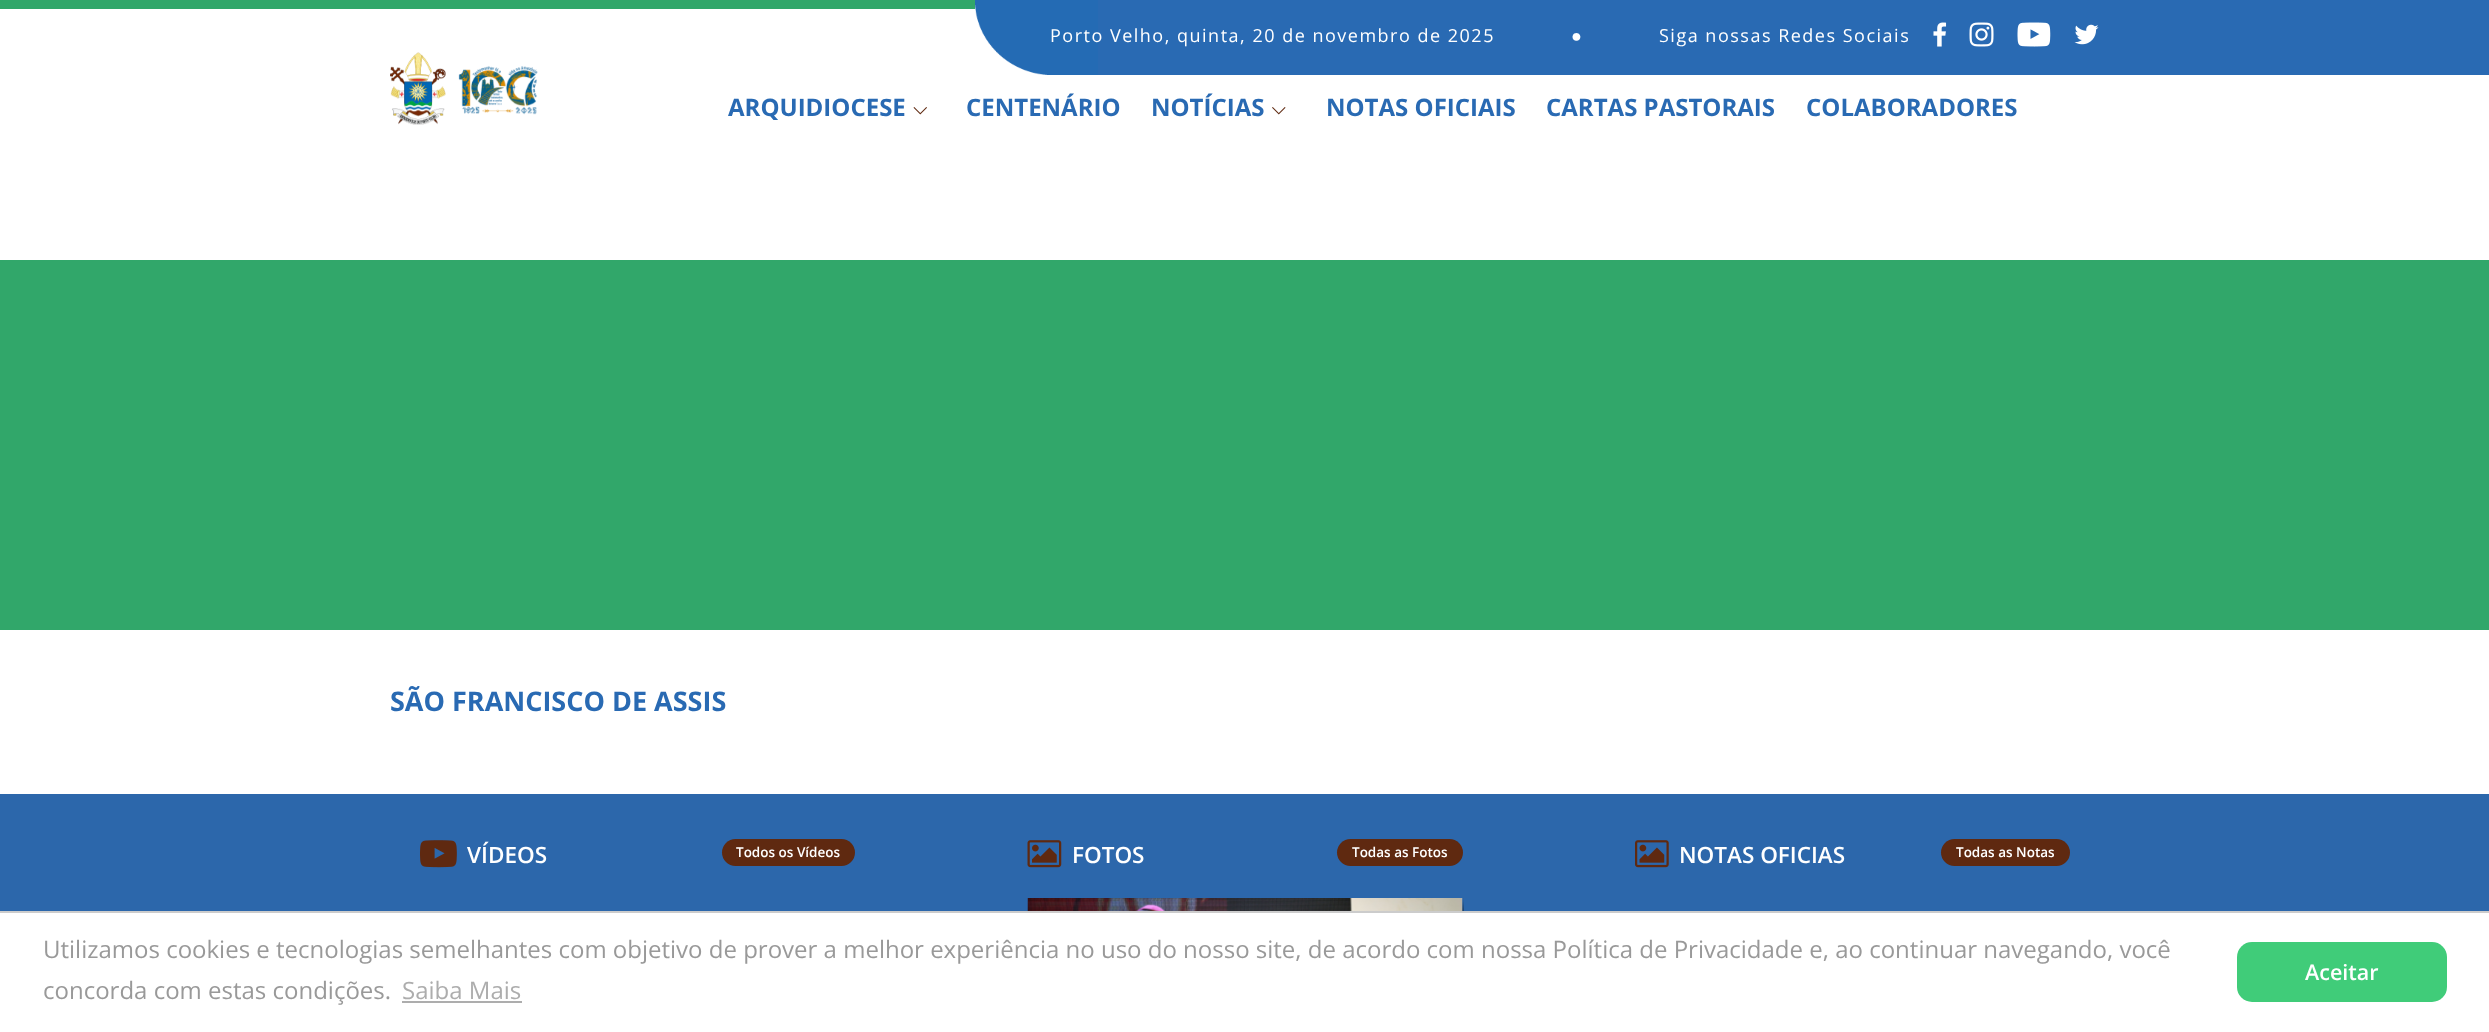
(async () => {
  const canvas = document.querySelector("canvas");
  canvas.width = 2489;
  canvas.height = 1032;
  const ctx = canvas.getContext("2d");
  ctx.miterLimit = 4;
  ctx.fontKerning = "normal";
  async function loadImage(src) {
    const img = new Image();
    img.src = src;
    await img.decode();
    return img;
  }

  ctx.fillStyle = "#ffffff";
  ctx.fillRect(0, 0, 2489, 1032);
  ctx.fillStyle = "#31a76a";
  ctx.fillRect(0, 0, 975, 9);
  ctx.fillStyle = "#296ab3";
  ctx.fillRect(1098, 0, 1391, 75);
  ctx.drawImage(await loadImage("img/1.png"), 975, 0, 123, 75);
  ctx.drawImage(await loadImage("img/2.png"), 1933, 22, 14, 25);
  ctx.drawImage(await loadImage("img/3.png"), 1969, 22, 25, 25);
  ctx.drawImage(await loadImage("img/4.png"), 2017, 22, 34, 25);
  ctx.drawImage(await loadImage("img/5.png"), 2074, 24, 25, 21);
  ctx.drawImage(await loadImage("img/6.png"), 390, 52, 148, 73);
  ctx.drawImage(await loadImage("img/7.png"), 913, 107, 14, 8);
  ctx.drawImage(await loadImage("img/8.png"), 1272, 107, 14, 8);
  ctx.fillStyle = "#31a76a";
  ctx.fillRect(0, 260, 2489, 370);
  ctx.fillStyle = "#2c67ab";
  ctx.fillRect(0, 794, 2489, 117);
  ctx.drawImage(await loadImage("img/9.png"), 420, 840, 37, 28);
  ctx.fillStyle = "#5f2910";
  ctx.beginPath();
  ctx.roundRect(722, 839, 133, 27, 13.5);
  ctx.fill();
  ctx.drawImage(await loadImage("img/10.png"), 1027, 840, 35, 28);
  ctx.beginPath();
  ctx.roundRect(1337, 839, 126, 27, 13.5);
  ctx.fill();
  ctx.drawImage(await loadImage("img/11.png"), 1027, 898, 437, 13);
  ctx.drawImage(await loadImage("img/12.png"), 1635, 840, 34, 28);
  ctx.beginPath();
  ctx.roundRect(1941, 839, 129, 27, 13.5);
  ctx.fill();
  ctx.fillStyle = "#cccccc";
  ctx.fillRect(0, 911, 2489, 2);
  ctx.fillStyle = "#adadad";
  ctx.fillRect(402, 1001, 120, 2);
  ctx.fillStyle = "#40cc79";
  ctx.beginPath();
  ctx.roundRect(2237, 942, 210, 60, 15);
  ctx.fill();
  ctx.letterSpacing = "1.5px";
  ctx.font = "18px Open Sans";
  ctx.fillStyle = "#ffffff";
  ctx.fillText("Porto Velho, quinta, 20 de novembro de 2025", 1050, 42);
  ctx.font = "18px Liberation Sans";
  ctx.fillText("●", 1571, 42);
  ctx.font = "18px Open Sans";
  ctx.fillText("Siga nossas Redes Sociais", 1659, 42);
  ctx.letterSpacing = "0px";
  ctx.font = "bold 24px Open Sans";
  ctx.fillStyle = "#296ab3";
  for (const [text, x, y] of [
    ["ARQUIDIOCESE", 728, 116],
    ["CENTENÁRIO", 966, 116],
    ["NOTÍCIAS", 1151, 116],
    ["NOTAS OFICIAIS", 1326, 116],
    ["CARTAS PASTORAIS", 1546, 116],
    ["COLABORADORES", 1806, 116],
  ]) {
    ctx.fillText(text, x, y);
  }
  ctx.font = "bold 27px Open Sans";
  ctx.fillText("SÃO FRANCISCO DE ASSIS", 390, 711);
  ctx.font = "600 22.5px Open Sans";
  ctx.fillStyle = "#ffffff";
  ctx.fillText("VÍDEOS", 467, 863);
  ctx.font = "600 13.5px Open Sans";
  ctx.fillText("Todos os Vídeos", 736, 857);
  ctx.font = "600 22.5px Open Sans";
  ctx.fillText("FOTOS", 1072, 863);
  ctx.font = "600 13.5px Open Sans";
  ctx.fillText("Todas as Fotos", 1352, 857);
  ctx.font = "600 22.5px Open Sans";
  ctx.fillText("NOTAS OFICIAS", 1679, 863);
  ctx.font = "600 13.5px Open Sans";
  ctx.fillText("Todas as Notas", 1956, 857);
  ctx.font = "24px Open Sans";
  ctx.fillStyle = "#999999";
  ctx.fillText("Utilizamos cookies e tecnologias semelhantes com objetivo de prover a melhor experiência no uso do nosso site, de acordo com nossa Política de Privacidade e, ao continuar navegando, você", 43, 958);
  ctx.fillText("concorda com estas condições.", 43, 999);
  ctx.fillStyle = "#adadad";
  ctx.fillText("Saiba Mais", 402, 999);
  ctx.font = "600 21.5px Open Sans";
  ctx.fillStyle = "#ffffff";
  ctx.fillText("Aceitar", 2305, 980);
})();
